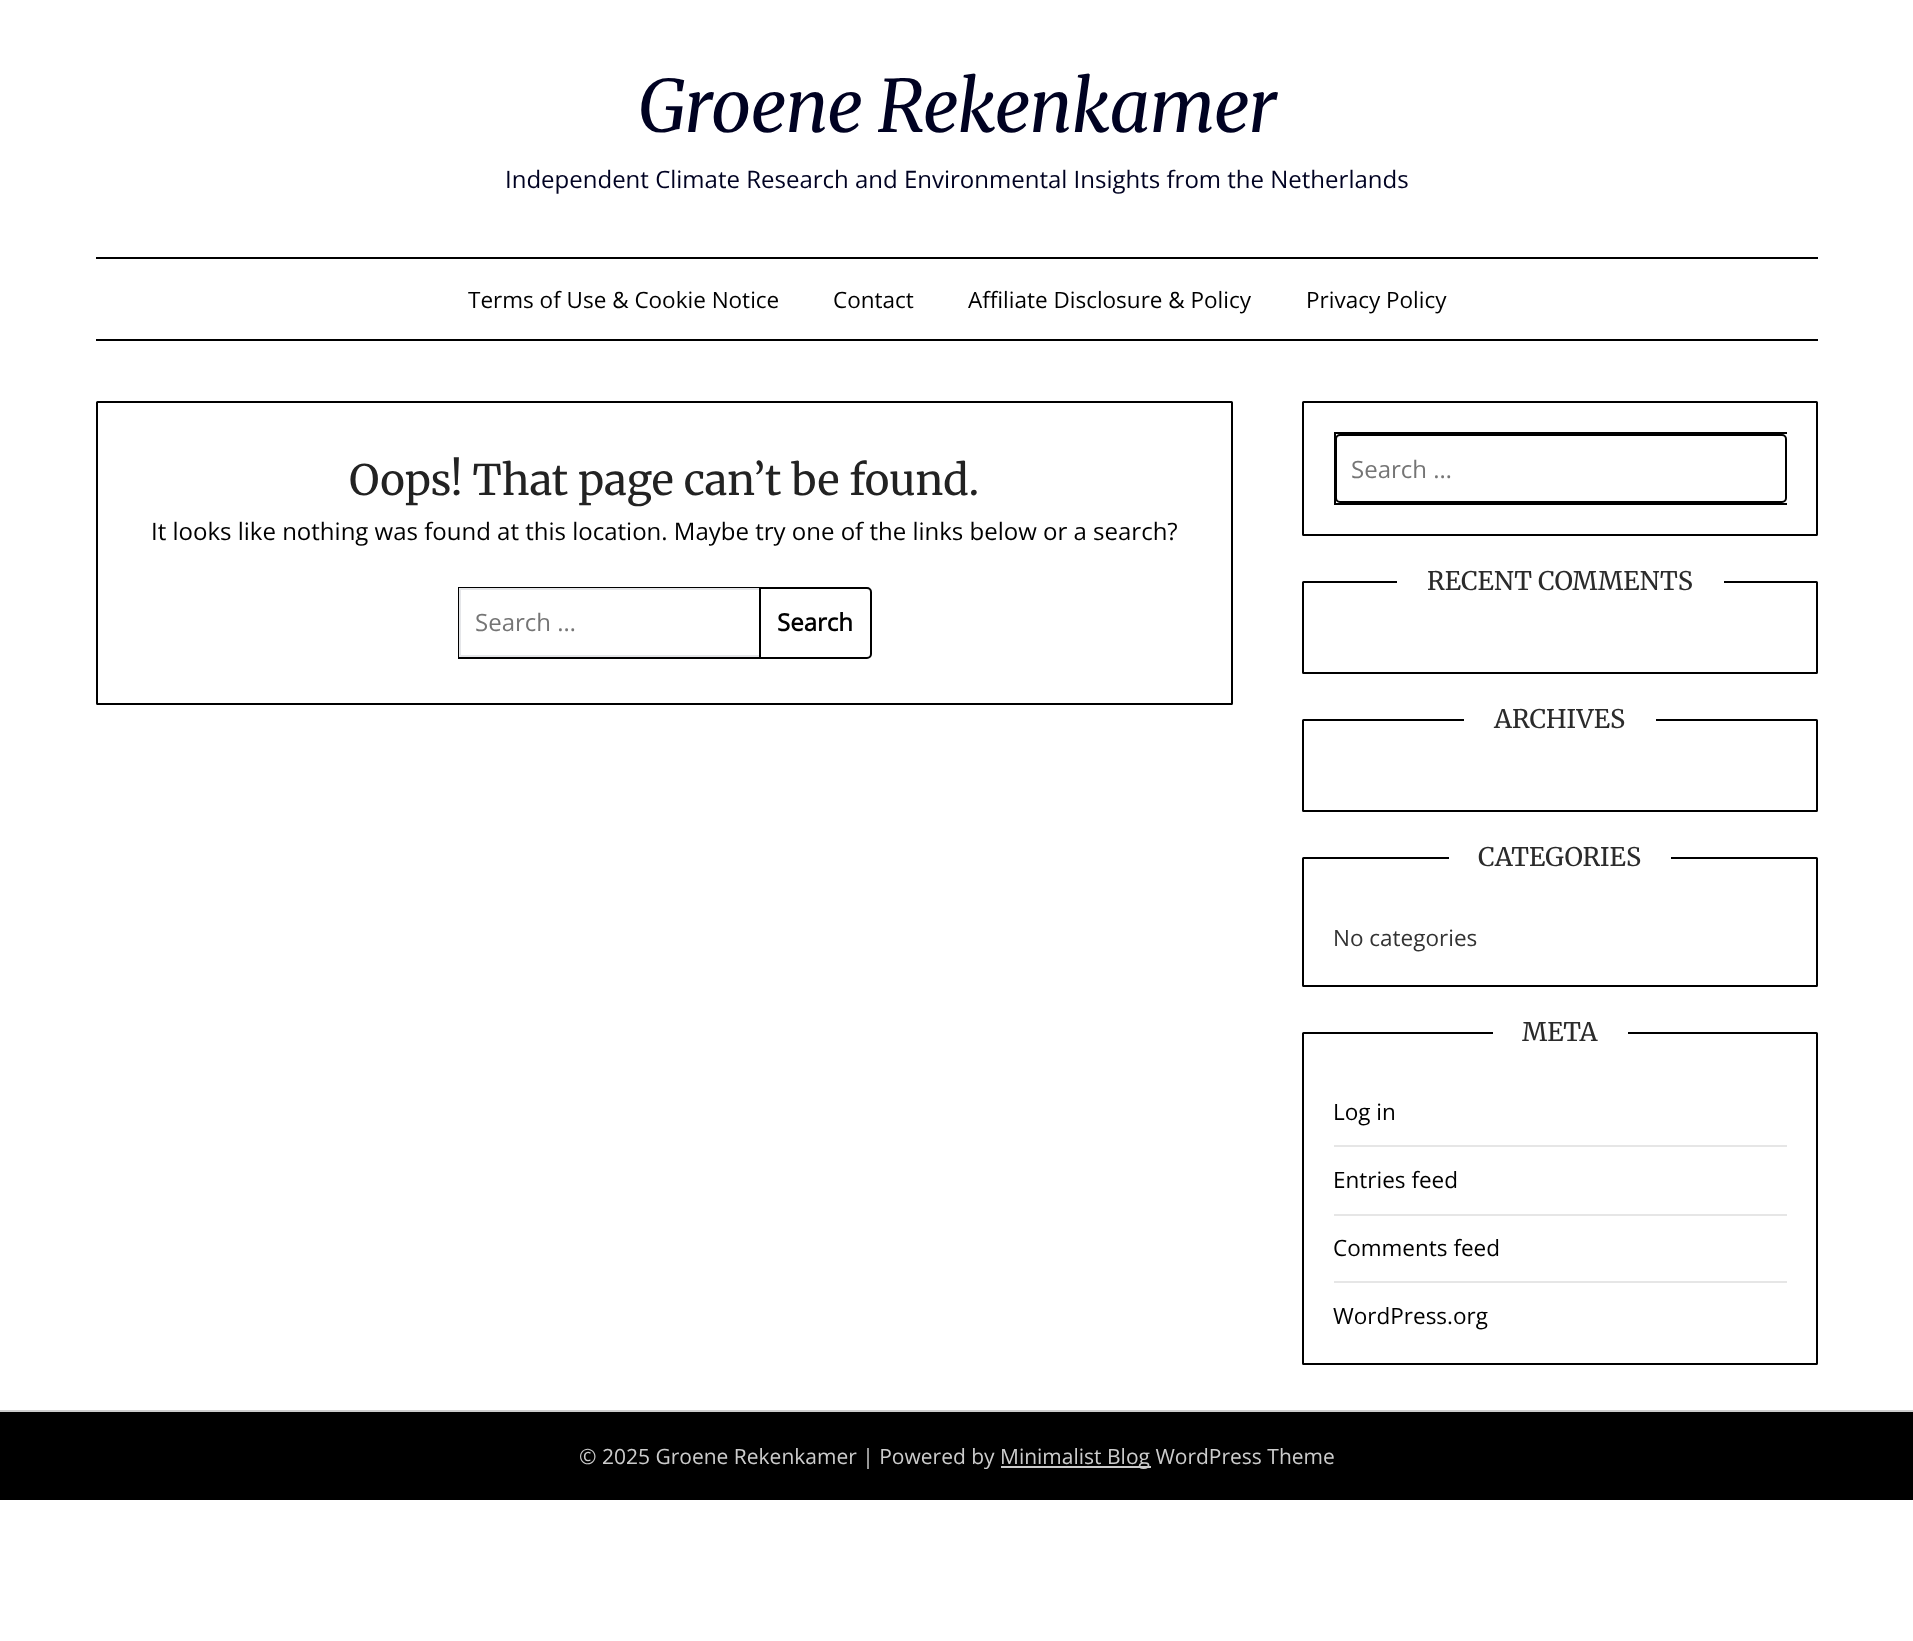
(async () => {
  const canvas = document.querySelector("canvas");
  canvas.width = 1913;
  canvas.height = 1641;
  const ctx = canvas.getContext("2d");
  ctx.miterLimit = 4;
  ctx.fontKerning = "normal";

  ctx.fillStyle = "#ffffff";
  ctx.fillRect(0, 0, 1913, 1641);
  ctx.fillStyle = "#000000";
  ctx.fillRect(96, 257, 1722, 2);
  ctx.fillRect(96, 339, 1722, 2);
  ctx.beginPath();
  ctx.roundRect(97, 402, 1135, 302, 0.5);
  ctx.strokeStyle = "#000000";
  ctx.lineWidth = 2;
  ctx.stroke();
  for (const [x, y, w, h, color] of [
    [458, 587, 303, 1, "#000000"],
    [458, 657, 303, 2, "#000000"],
    [458, 587, 2, 72, "#000000"],
  ]) {
    ctx.fillStyle = color;
    ctx.fillRect(x, y, w, h);
  }
  ctx.strokeStyle = "#e5e6e9";
  ctx.strokeRect(460, 589, 300, 67);
  ctx.beginPath();
  ctx.roundRect(760, 588, 111, 70, [0, 4, 4, 0]);
  ctx.strokeStyle = "#000000";
  ctx.stroke();
  ctx.beginPath();
  ctx.roundRect(1303, 402, 514, 133, 0.5);
  ctx.stroke();
  for (const [x, y, w, h, color] of [
    [1334, 432, 453, 2, "#000000"],
    [1334, 503, 453, 2, "#000000"],
    [1334, 432, 2, 72, "#000000"],
  ]) {
    ctx.fillStyle = color;
    ctx.fillRect(x, y, w, h);
  }
  ctx.beginPath();
  ctx.roundRect(1336, 435, 450, 67, 4);
  ctx.stroke();
  ctx.beginPath();
  ctx.roundRect(1303, 582, 514, 91, 0.5);
  ctx.stroke();
  ctx.fillStyle = "#ffffff";
  ctx.fillRect(1397, 581, 327, 2);
  ctx.beginPath();
  ctx.roundRect(1303, 720, 514, 91, 0.5);
  ctx.stroke();
  ctx.fillRect(1464, 719, 192, 2);
  ctx.beginPath();
  ctx.roundRect(1303, 858, 514, 128, 0.5);
  ctx.stroke();
  ctx.fillRect(1449, 857, 222, 2);
  ctx.beginPath();
  ctx.roundRect(1303, 1033, 514, 331, 0.5);
  ctx.stroke();
  for (const [x, y, w, h, color] of [
    [1493, 1032, 135, 2, "#ffffff"],
    [1334, 1145, 453, 2, "#e6e6e6"],
    [1334, 1214, 453, 2, "#e6e6e6"],
    [1334, 1281, 453, 2, "#e6e6e6"],
    [0, 1412, 1913, 88, "#000000"],
    [0, 1410, 1913, 2, "#cccccc"],
    [1001, 1466, 150, 2, "#cccccc"],
  ]) {
    ctx.fillStyle = color;
    ctx.fillRect(x, y, w, h);
  }
  ctx.font = "italic 72px Merriweather";
  ctx.fillStyle = "#000222";
  ctx.fillText("Groene Rekenkamer", 638, 132);
  ctx.font = "24px Open Sans";
  ctx.fillText("Independent Climate Research and Environmental Insights from the Netherlands", 505, 188);
  ctx.font = "22.5px Open Sans";
  ctx.fillStyle = "#000000";
  for (const [text, x, y] of [
    ["Terms of Use & Cookie Notice", 468, 308],
    ["Contact", 833, 308],
    ["Affiliate Disclosure & Policy", 968, 308],
    ["Privacy Policy", 1306, 308],
  ]) {
    ctx.fillText(text, x, y);
  }
  ctx.font = "42px Merriweather";
  ctx.fillStyle = "#222222";
  ctx.fillText("Oops! That page can’t be found.", 349, 495);
  ctx.font = "24px Open Sans";
  ctx.fillStyle = "#000000";
  ctx.fillText("It looks like nothing was found at this location. Maybe try one of the links below or a search?", 151, 540);
  ctx.fillStyle = "#757575";
  ctx.fillText("Search …", 475, 631);
  ctx.font = "bold 24px Open Sans";
  ctx.fillStyle = "#000000";
  ctx.fillText("Search", 777, 631);
  ctx.font = "24px Open Sans";
  ctx.fillStyle = "#757575";
  ctx.fillText("Search …", 1351, 478);
  ctx.font = "25.5px Merriweather";
  ctx.fillStyle = "#2b2b2b";
  for (const [text, x, y] of [
    ["RECENT COMMENTS", 1427, 590],
    ["ARCHIVES", 1494, 728],
    ["CATEGORIES", 1478, 866],
  ]) {
    ctx.fillText(text, x, y);
  }
  ctx.font = "22.5px Open Sans";
  ctx.fillStyle = "#333333";
  ctx.fillText("No categories", 1333, 946);
  ctx.font = "25.5px Merriweather";
  ctx.fillStyle = "#2b2b2b";
  ctx.fillText("META", 1522, 1041);
  ctx.font = "22.5px Open Sans";
  ctx.fillStyle = "#000000";
  for (const [text, x, y] of [
    ["Log in", 1333, 1120],
    ["Entries feed", 1333, 1188],
    ["Comments feed", 1333, 1256],
    ["WordPress.org", 1333, 1324],
  ]) {
    ctx.fillText(text, x, y);
  }
  ctx.font = "21px Open Sans";
  ctx.fillStyle = "#cccccc";
  ctx.fillText("© 2025 Groene Rekenkamer | Powered by", 579, 1464);
  ctx.fillText("Minimalist Blog WordPress Theme", 1000, 1464);
})();
